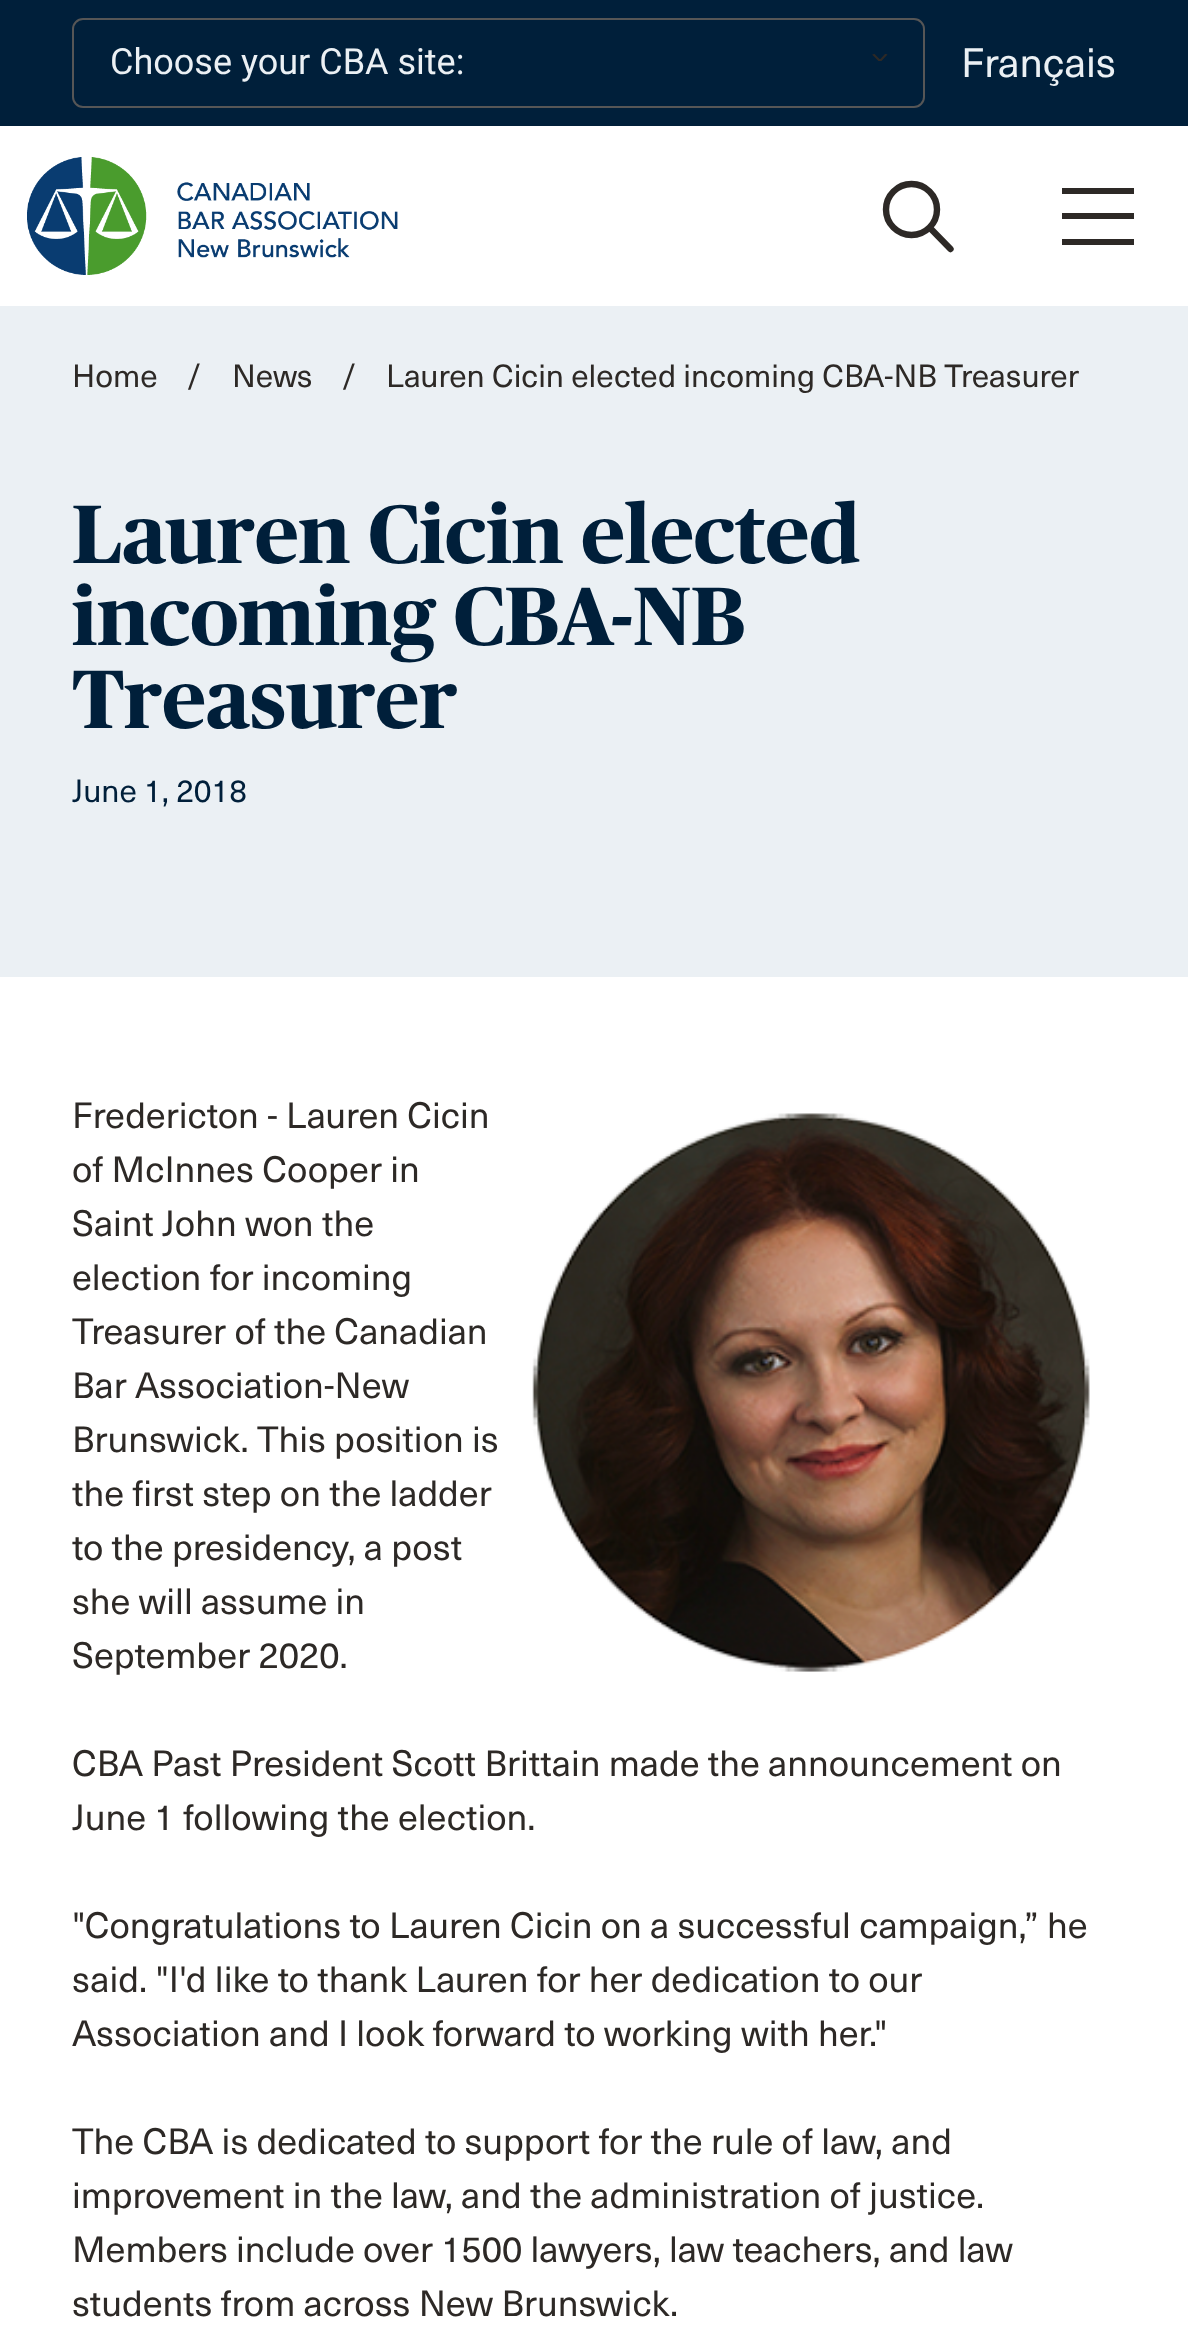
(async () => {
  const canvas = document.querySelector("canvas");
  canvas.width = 1188;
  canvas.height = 2334;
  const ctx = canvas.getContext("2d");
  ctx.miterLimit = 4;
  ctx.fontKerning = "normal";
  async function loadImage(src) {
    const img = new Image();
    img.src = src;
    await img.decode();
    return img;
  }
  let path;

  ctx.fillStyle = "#ffffff";
  ctx.fillRect(0, 0, 1188, 2334);
  ctx.fillStyle = "#001f3a";
  ctx.fillRect(0, 0, 1188, 126);
  ctx.beginPath();
  ctx.roundRect(73, 19, 851, 88, 10);
  ctx.strokeStyle = "#565656";
  ctx.lineWidth = 2;
  ctx.stroke();
  ctx.save();
  ctx.beginPath();
  ctx.roundRect(871, 54, 18, 7, 3.5);
  ctx.clip();
  path = new Path2D("M886.5 54L880 61L873 54");
  ctx.strokeStyle = "#2d2926";
  ctx.lineWidth = 2.2;
  ctx.lineCap = "round";
  ctx.lineJoin = "round";
  ctx.stroke(path);
  ctx.restore();
  ctx.drawImage(await loadImage("img/1.png"), 27, 157, 371, 118);
  ctx.beginPath();
  ctx.arc(911.5, 209.5, 25.5, 0, Math.PI * 2);
  ctx.strokeStyle = "#2d2926";
  ctx.lineWidth = 6.4;
  ctx.stroke();
  path = new Path2D("M950.5 249L930.5 228.5");
  ctx.lineCap = "round";
  ctx.lineJoin = "round";
  ctx.stroke(path);
  for (const [x, y, w, h, color] of [
    [1062, 188, 72, 6, "#2d2926"],
    [1062, 213, 72, 6, "#2d2926"],
    [1062, 239, 72, 6, "#2d2926"],
    [0, 306, 1188, 671, "#ebf0f4"],
  ]) {
    ctx.fillStyle = color;
    ctx.fillRect(x, y, w, h);
  }
  ctx.drawImage(await loadImage("img/2.png"), 532, 1113, 558, 559);
  ctx.font = "36px Roboto";
  ctx.fillText("Choose your CBA site:", 110, 74);
  ctx.font = "40.5px 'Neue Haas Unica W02'";
  ctx.fillText("Français", 961, 77);
  ctx.font = "31.5px 'Neue Haas Unica W02'";
  ctx.fillStyle = "#2d2926";
  for (const [text, x, y] of [
    ["Home", 72, 387],
    ["/", 187, 387],
    ["News", 232, 387],
    ["/", 342, 387],
    ["Lauren Cicin elected incoming CBA-NB Treasurer", 386, 387],
  ]) {
    ctx.fillText(text, x, y);
  }
  ctx.font = "bold 82.75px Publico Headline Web";
  ctx.fillStyle = "#001f3a";
  for (const [text, x, y] of [
    ["Lauren Cicin elected", 72, 563],
    ["incoming CBA-NB", 72, 645],
    ["Treasurer", 72, 728],
  ]) {
    ctx.fillText(text, x, y);
  }
  ctx.font = "31.5px 'Neue Haas Unica W02'";
  ctx.fillText("June 1, 2018", 72, 802);
  ctx.font = "36px 'Neue Haas Unica W02'";
  ctx.fillStyle = "#2d2926";
  for (const [text, x, y] of [
    ["Fredericton - Lauren Cicin", 72, 1128],
    ["of McInnes Cooper in", 72, 1182],
    ["Saint John won the", 72, 1236],
    ["election for incoming", 72, 1290],
    ["Treasurer of the Canadian", 72, 1344],
    ["Bar Association-New", 72, 1398],
    ["Brunswick. This position is", 72, 1452],
    ["the first step on the ladder", 72, 1506],
    ["to the presidency, a post", 72, 1560],
    ["she will assume in", 72, 1614],
    ["September 2020.", 72, 1668],
    ["CBA Past President Scott Brittain made the announcement on", 72, 1776],
    ["June 1 following the election.", 72, 1830],
    ["\"Congratulations to Lauren Cicin on a successful campaign,” he", 72, 1938],
    ["said. \"I'd like to thank Lauren for her dedication to our", 72, 1992],
    ["Association and I look forward to working with her.\"", 72, 2046],
    ["The CBA is dedicated to support for the rule of law, and", 72, 2154],
    ["improvement in the law, and the administration of justice.", 72, 2208],
    ["Members include over 1500 lawyers, law teachers, and law", 72, 2262],
    ["students from across New Brunswick.", 72, 2316],
  ]) {
    ctx.fillText(text, x, y);
  }
})();
